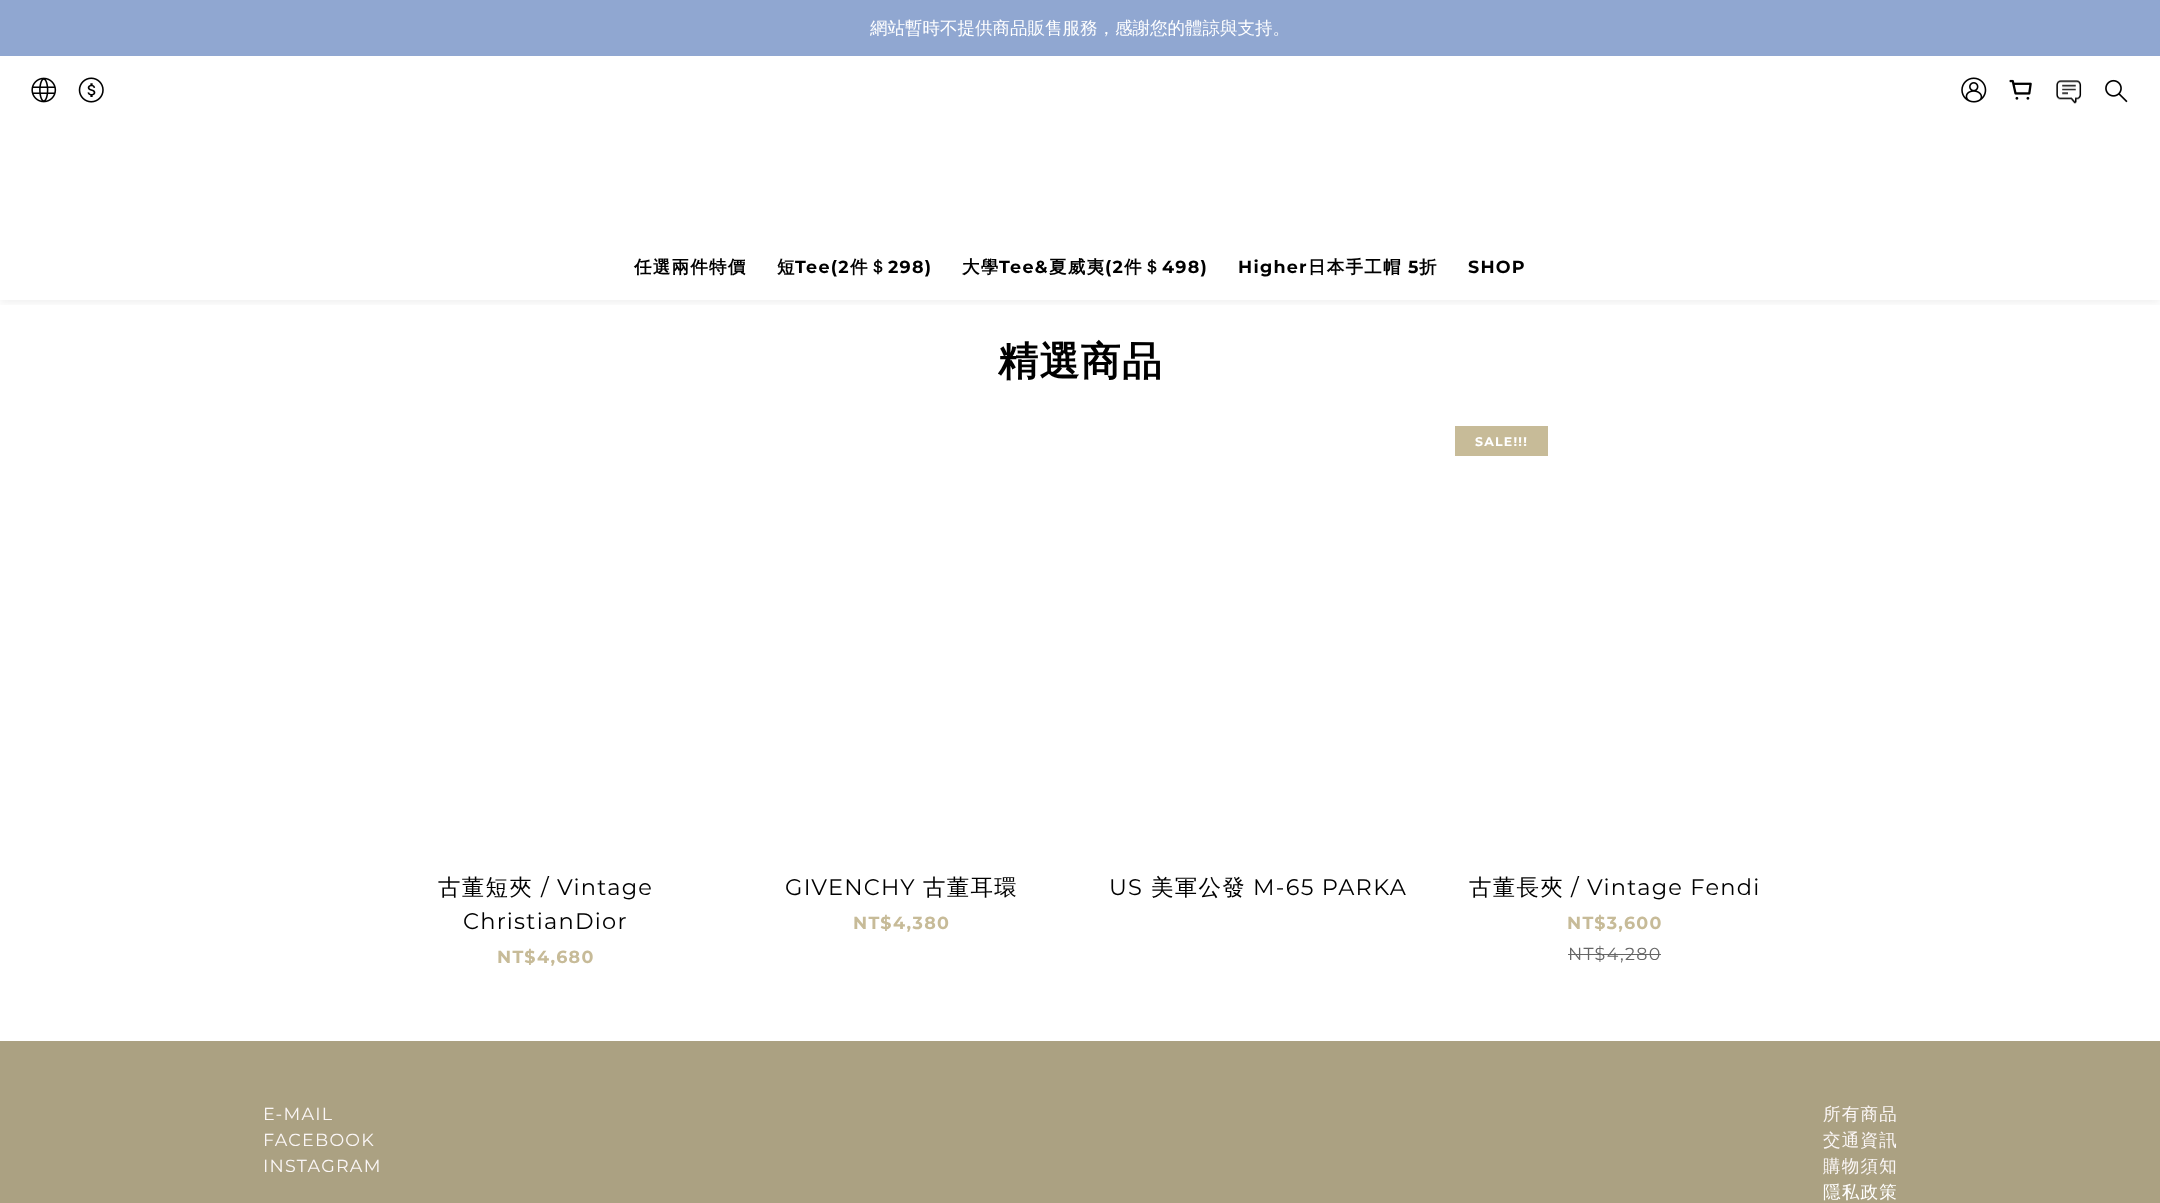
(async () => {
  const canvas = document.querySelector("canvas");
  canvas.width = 2160;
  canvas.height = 1203;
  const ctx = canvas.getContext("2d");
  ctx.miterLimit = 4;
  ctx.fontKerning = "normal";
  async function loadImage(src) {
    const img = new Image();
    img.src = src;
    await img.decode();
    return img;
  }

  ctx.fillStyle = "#ffffff";
  ctx.fillRect(0, 0, 2160, 1203);
  ctx.fillStyle = "#90a7d1";
  ctx.fillRect(0, 0, 2160, 56);
  ctx.save();
  ctx.beginPath();
  ctx.rect(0, 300, 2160, 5);
  ctx.clip();
  ctx.fillStyle = "rgba(0, 0, 0, 0.06)";
  ctx.filter = "blur(4px)";
  ctx.beginPath();
  ctx.rect(0, 59, 2160, 244);
  ctx.fill();
  ctx.filter = "none";
  ctx.restore();
  ctx.drawImage(await loadImage("img/1.png"), 31, 77, 26, 26);
  ctx.drawImage(await loadImage("img/2.png"), 78, 77, 26, 26);
  ctx.drawImage(await loadImage("img/3.png"), 1961, 77, 26, 26);
  ctx.drawImage(await loadImage("img/4.png"), 2009, 79, 23, 21);
  ctx.drawImage(await loadImage("img/5.png"), 2056, 80, 26, 24);
  ctx.drawImage(await loadImage("img/6.png"), 2105, 79, 23, 24);
  for (const [x, y, w, h, color] of [
    [1455, 426, 93, 30, "#c7bb98"],
    [1568, 954, 93, 1, "#666666"],
    [0, 1041, 2160, 162, "#aba182"],
  ]) {
    ctx.fillStyle = color;
    ctx.fillRect(x, y, w, h);
  }
  ctx.font = "500 17.5px WenQuanYi Zen Hei";
  ctx.fillStyle = "#ffffff";
  ctx.fillText("網站暫時不提供商品販售服務，感謝您的體諒與支持。", 870, 34);
  ctx.letterSpacing = "1.25px";
  ctx.font = "bold 17.5px WenQuanYi Zen Hei";
  ctx.fillStyle = "#000000";
  ctx.fillText("任選兩件特價", 634, 273);
  ctx.fillText("短", 777, 273);
  ctx.font = "bold 17.5px Montserrat";
  ctx.fillText("Tee(2", 795, 273);
  ctx.font = "bold 17.5px WenQuanYi Zen Hei";
  ctx.fillText("件＄", 850, 273);
  ctx.font = "bold 17.5px Montserrat";
  ctx.fillText("298)", 888, 273);
  ctx.font = "bold 17.5px WenQuanYi Zen Hei";
  ctx.fillText("大學", 962, 273);
  ctx.font = "bold 17.5px Montserrat";
  ctx.fillText("Tee&", 999, 273);
  ctx.font = "bold 17.5px WenQuanYi Zen Hei";
  ctx.fillText("夏威夷", 1049, 273);
  ctx.font = "bold 17.5px Montserrat";
  ctx.fillText("(2", 1105, 273);
  ctx.font = "bold 17.5px WenQuanYi Zen Hei";
  ctx.fillText("件＄", 1124, 273);
  ctx.font = "bold 17.5px Montserrat";
  ctx.fillText("498)", 1162, 273);
  ctx.fillText("Higher", 1238, 273);
  ctx.font = "bold 17.5px WenQuanYi Zen Hei";
  ctx.fillText("日本手工帽", 1308, 273);
  ctx.font = "bold 17.5px Montserrat";
  ctx.fillText("5", 1408, 273);
  ctx.font = "bold 17.5px WenQuanYi Zen Hei";
  ctx.fillText("折", 1419, 273);
  ctx.font = "bold 17.5px Montserrat";
  ctx.fillText("SHOP", 1468, 273);
  ctx.font = "bold 40px WenQuanYi Zen Hei";
  ctx.fillText("精選商品", 998, 375);
  ctx.font = "500 22.5px WenQuanYi Zen Hei";
  ctx.fillText("古董短夾", 438, 895);
  ctx.font = "22.5px Montserrat";
  ctx.fillText("/ Vintage", 541, 895);
  ctx.fillText("ChristianDior", 463, 929);
  ctx.font = "bold 17.5px Montserrat";
  ctx.fillStyle = "#c7bb98";
  ctx.fillText("NT$4,680", 497, 963);
  ctx.font = "22.5px Montserrat";
  ctx.fillStyle = "#000000";
  ctx.fillText("GIVENCHY", 785, 895);
  ctx.font = "500 22.5px WenQuanYi Zen Hei";
  ctx.fillText("古董耳環", 923, 895);
  ctx.font = "bold 17.5px Montserrat";
  ctx.fillStyle = "#c7bb98";
  ctx.fillText("NT$4,380", 853, 929);
  ctx.font = "22.5px Montserrat";
  ctx.fillStyle = "#000000";
  ctx.fillText("US", 1109, 895);
  ctx.font = "500 22.5px WenQuanYi Zen Hei";
  ctx.fillText("美軍公發", 1151, 895);
  ctx.font = "22.5px Montserrat";
  ctx.fillText("M-65 PARKA", 1253, 895);
  ctx.font = "bold 12.5px Montserrat";
  ctx.fillStyle = "#ffffff";
  ctx.fillText("SALE!!!", 1475, 446);
  ctx.font = "500 22.5px WenQuanYi Zen Hei";
  ctx.fillStyle = "#000000";
  ctx.fillText("古董長夾", 1469, 895);
  ctx.font = "22.5px Montserrat";
  ctx.fillText("/ Vintage Fendi", 1571, 895);
  ctx.font = "bold 17.5px Montserrat";
  ctx.fillStyle = "#c7bb98";
  ctx.fillText("NT$3,600", 1567, 929);
  ctx.font = "17.5px Montserrat";
  ctx.fillStyle = "#666666";
  ctx.fillText("NT$4,280", 1568, 960);
  ctx.fillStyle = "#fbf7f7";
  for (const [text, x, y] of [
    ["E-MAIL", 263, 1120],
    ["FACEBOOK", 263, 1146],
    ["INSTAGRAM", 263, 1172],
  ]) {
    ctx.fillText(text, x, y);
  }
  ctx.font = "500 17.5px WenQuanYi Zen Hei";
  for (const [text, x, y] of [
    ["所有商品", 1823, 1120],
    ["交通資訊", 1823, 1146],
    ["購物須知", 1823, 1172],
  ]) {
    ctx.fillText(text, x, y);
  }
  ctx.fillStyle = "#ffffff";
  ctx.fillText("隱私政策", 1823, 1198);
})();
